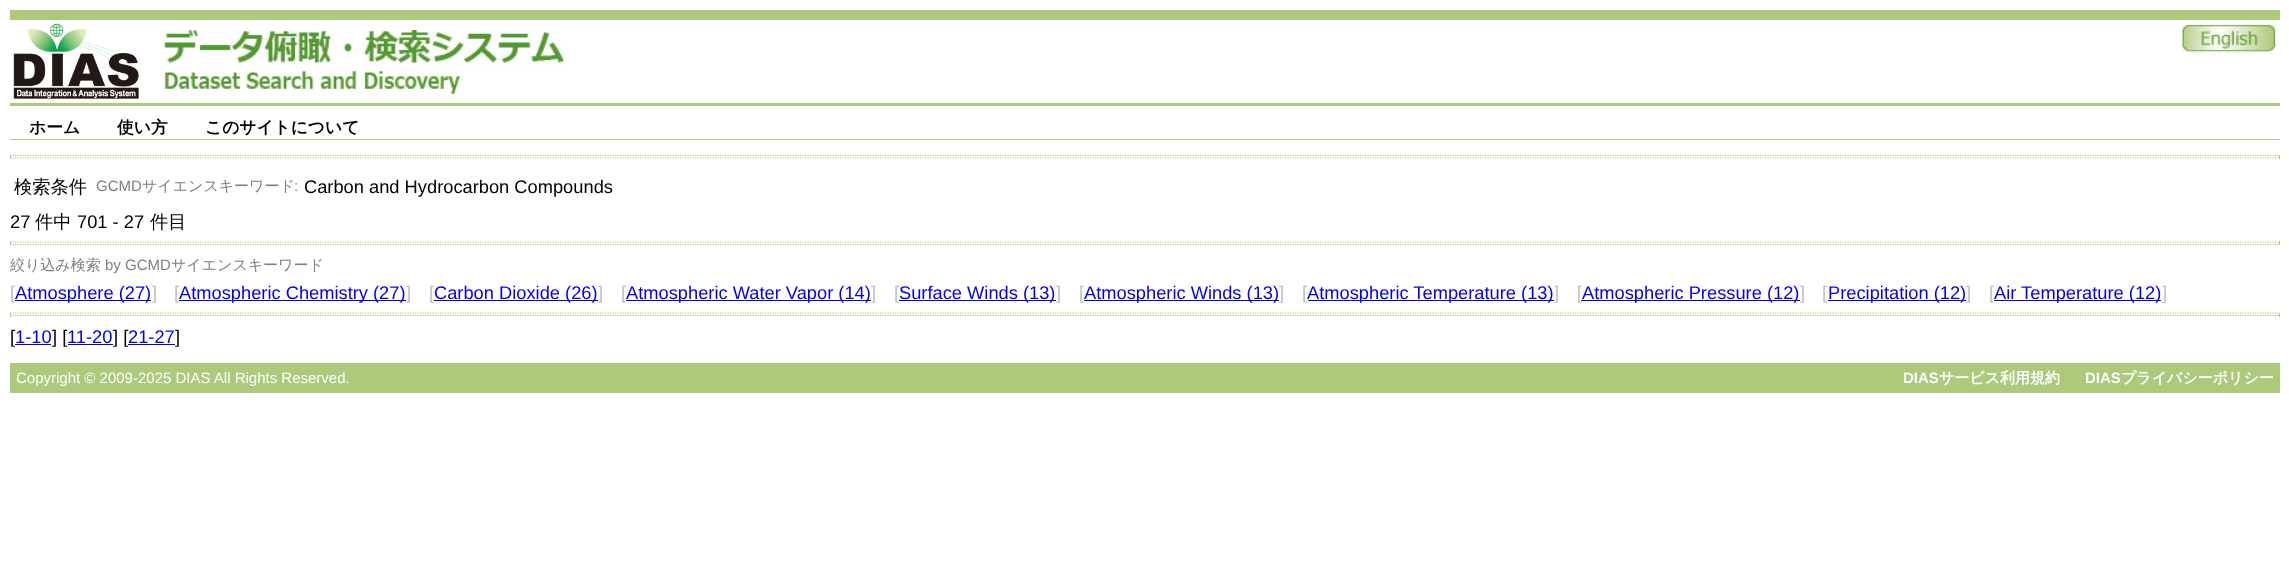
(async () => {
  const canvas = document.querySelector("canvas");
  canvas.width = 2289;
  canvas.height = 585;
  const ctx = canvas.getContext("2d");
  ctx.miterLimit = 4;
  ctx.fontKerning = "normal";
  async function loadImage(src) {
    const img = new Image();
    img.src = src;
    await img.decode();
    return img;
  }
  let path;

  ctx.fillStyle = "#ffffff";
  ctx.fillRect(0, 0, 2289, 585);
  ctx.fillStyle = "#adc97c";
  ctx.fillRect(10, 10, 2270, 10);
  ctx.fillRect(10, 103, 2270, 3);
  ctx.drawImage(await loadImage("img/1.png"), 13, 23, 126, 76);
  ctx.drawImage(await loadImage("img/2.png"), 163, 30, 401, 69);
  ctx.drawImage(await loadImage("img/3.png"), 2182, 23, 94, 31);
  ctx.fillRect(10, 139, 2270, 1);
  path = new Path2D("M10 155.5H2280");
  ctx.strokeStyle = "#adc97c";
  ctx.lineWidth = 1.2;
  ctx.setLineDash([1.25, 1.25]);
  ctx.stroke(path);
  ctx.fillRect(2279, 155, 1, 4);
  path = new Path2D("M10 158H2280");
  ctx.stroke(path);
  ctx.fillRect(10, 155, 1, 4);
  path = new Path2D("M10 242H2280");
  ctx.stroke(path);
  ctx.fillRect(2279, 241, 1, 4);
  path = new Path2D("M10 244.5H2280");
  ctx.stroke(path);
  for (const [x, y, w, h, color] of [
    [10, 241, 1, 4, "#adc97c"],
    [15, 300, 136, 1, "#0000ee"],
    [626, 300, 245, 1, "#0000ee"],
    [899, 300, 157, 1, "#0000ee"],
    [1084, 300, 195, 1, "#0000ee"],
    [1308, 300, 246, 1, "#0000ee"],
    [1828, 300, 138, 1, "#0000ee"],
    [1994, 300, 167, 1, "#0000ee"],
  ]) {
    ctx.fillStyle = color;
    ctx.fillRect(x, y, w, h);
  }
  path = new Path2D("M10 313H2280");
  ctx.stroke(path);
  ctx.fillStyle = "#adc97c";
  ctx.fillRect(2279, 313, 1, 4);
  path = new Path2D("M10 315.5H2280");
  ctx.stroke(path);
  for (const [x, y, w, h, color] of [
    [10, 313, 1, 4, "#adc97c"],
    [15, 344, 36, 1, "#0000ee"],
    [68, 344, 45, 1, "#0000ee"],
    [128, 344, 47, 1, "#0000ee"],
    [10, 363, 2270, 30, "#adc97c"],
  ]) {
    ctx.fillStyle = color;
    ctx.fillRect(x, y, w, h);
  }
  ctx.font = "bold 16.75px WenQuanYi Zen Hei";
  ctx.fillStyle = "#000000";
  for (const [text, x, y] of [
    ["ホーム", 29, 133],
    ["使い方", 117, 133],
    ["このサイトについて", 205, 133],
  ]) {
    ctx.fillText(text, x, y);
  }
  ctx.font = "500 18.3px WenQuanYi Zen Hei";
  ctx.fillText("検索条件", 14, 193);
  ctx.font = "15px Liberation Sans";
  ctx.fillStyle = "#808080";
  ctx.fillText("GCMD", 96, 191);
  ctx.font = "500 15px WenQuanYi Zen Hei";
  ctx.fillText("サイエンスキーワード", 142, 191);
  ctx.font = "15px Liberation Sans";
  ctx.fillText(":", 294, 191);
  ctx.font = "18.3px Liberation Sans";
  ctx.fillStyle = "#000000";
  ctx.fillText("Carbon and Hydrocarbon Compounds", 304, 193);
  ctx.fillText("27", 10, 228);
  ctx.font = "500 18.3px WenQuanYi Zen Hei";
  ctx.fillText("件中", 35, 228);
  ctx.font = "18.3px Liberation Sans";
  ctx.fillText("701 - 27", 77, 228);
  ctx.font = "500 18.3px WenQuanYi Zen Hei";
  ctx.fillText("件目", 150, 228);
  ctx.font = "500 15px WenQuanYi Zen Hei";
  ctx.fillStyle = "#808080";
  ctx.fillText("絞り込み検索", 10, 270);
  ctx.font = "15px Liberation Sans";
  ctx.fillText("by GCMD", 105, 270);
  ctx.font = "500 15px WenQuanYi Zen Hei";
  ctx.fillText("サイエンスキーワード", 171, 270);
  ctx.font = "18.3px Liberation Sans";
  ctx.fillStyle = "#c0c0c0";
  ctx.fillText("[", 10, 299);
  ctx.fillStyle = "#0000ee";
  ctx.fillText("Atmosphere (27)", 15, 299);
  ctx.fillStyle = "#c0c0c0";
  ctx.fillText("]", 152, 299);
  ctx.fillText("[", 174, 299);
  ctx.fillStyle = "#0000ee";
  ctx.fillRect(179, 300, 227, 1);
  ctx.fillText("Atmospheric Chemistry (27)", 179, 299);
  ctx.fillStyle = "#c0c0c0";
  ctx.fillText("]", 406, 299);
  ctx.fillText("[", 429, 299);
  ctx.fillStyle = "#0000ee";
  ctx.fillRect(434, 300, 164, 1);
  ctx.fillText("Carbon Dioxide (26)", 434, 299);
  ctx.fillStyle = "#c0c0c0";
  ctx.fillText("]", 598, 299);
  ctx.fillText("[", 621, 299);
  ctx.fillStyle = "#0000ee";
  ctx.fillText("Atmospheric Water Vapor (14)", 626, 299);
  ctx.fillStyle = "#c0c0c0";
  ctx.fillText("]", 871, 299);
  ctx.fillText("[", 894, 299);
  ctx.fillStyle = "#0000ee";
  ctx.fillText("Surface Winds (13)", 899, 299);
  ctx.fillStyle = "#c0c0c0";
  ctx.fillText("]", 1056, 299);
  ctx.fillText("[", 1079, 299);
  ctx.fillStyle = "#0000ee";
  ctx.fillText("Atmospheric Winds (13)", 1084, 299);
  ctx.fillStyle = "#c0c0c0";
  ctx.fillText("]", 1279, 299);
  ctx.fillText("[", 1302, 299);
  ctx.fillStyle = "#0000ee";
  ctx.fillText("Atmospheric Temperature (13)", 1307, 299);
  ctx.fillStyle = "#c0c0c0";
  ctx.fillText("]", 1554, 299);
  ctx.fillText("[", 1577, 299);
  ctx.fillStyle = "#0000ee";
  ctx.fillRect(1581, 300, 219, 1);
  ctx.fillText("Atmospheric Pressure (12)", 1582, 299);
  ctx.fillStyle = "#c0c0c0";
  ctx.fillText("]", 1800, 299);
  ctx.fillText("[", 1822, 299);
  ctx.fillStyle = "#0000ee";
  ctx.fillText("Precipitation (12)", 1828, 299);
  ctx.fillStyle = "#c0c0c0";
  ctx.fillText("]", 1966, 299);
  ctx.fillText("[", 1989, 299);
  ctx.fillStyle = "#0000ee";
  ctx.fillText("Air Temperature (12)", 1994, 299);
  ctx.fillStyle = "#c0c0c0";
  ctx.fillText("]", 2162, 299);
  ctx.fillStyle = "#000000";
  ctx.fillText("[", 10, 343);
  ctx.fillStyle = "#0000ee";
  ctx.fillText("1-10", 15, 343);
  ctx.fillStyle = "#000000";
  ctx.fillText("] [", 52, 343);
  ctx.fillStyle = "#0000ee";
  ctx.fillText("11-20", 67, 343);
  ctx.fillStyle = "#000000";
  ctx.fillText("] [", 113, 343);
  ctx.fillStyle = "#0000ee";
  ctx.fillText("21-27", 128, 343);
  ctx.fillStyle = "#000000";
  ctx.fillText("]", 175, 343);
  ctx.font = "15px Liberation Sans";
  ctx.fillStyle = "#ffffff";
  ctx.fillText("Copyright © 2009-2025 DIAS All Rights Reserved.", 16, 383);
  ctx.font = "bold 15px Liberation Sans";
  ctx.fillText("DIAS", 1903, 383);
  ctx.font = "bold 15px WenQuanYi Zen Hei";
  ctx.fillText("サービス利用規約", 1939, 383);
  ctx.font = "bold 15px Liberation Sans";
  ctx.fillText("DIAS", 2085, 383);
  ctx.font = "bold 15px WenQuanYi Zen Hei";
  ctx.fillText("プライバシーポリシー", 2121, 383);
})();
